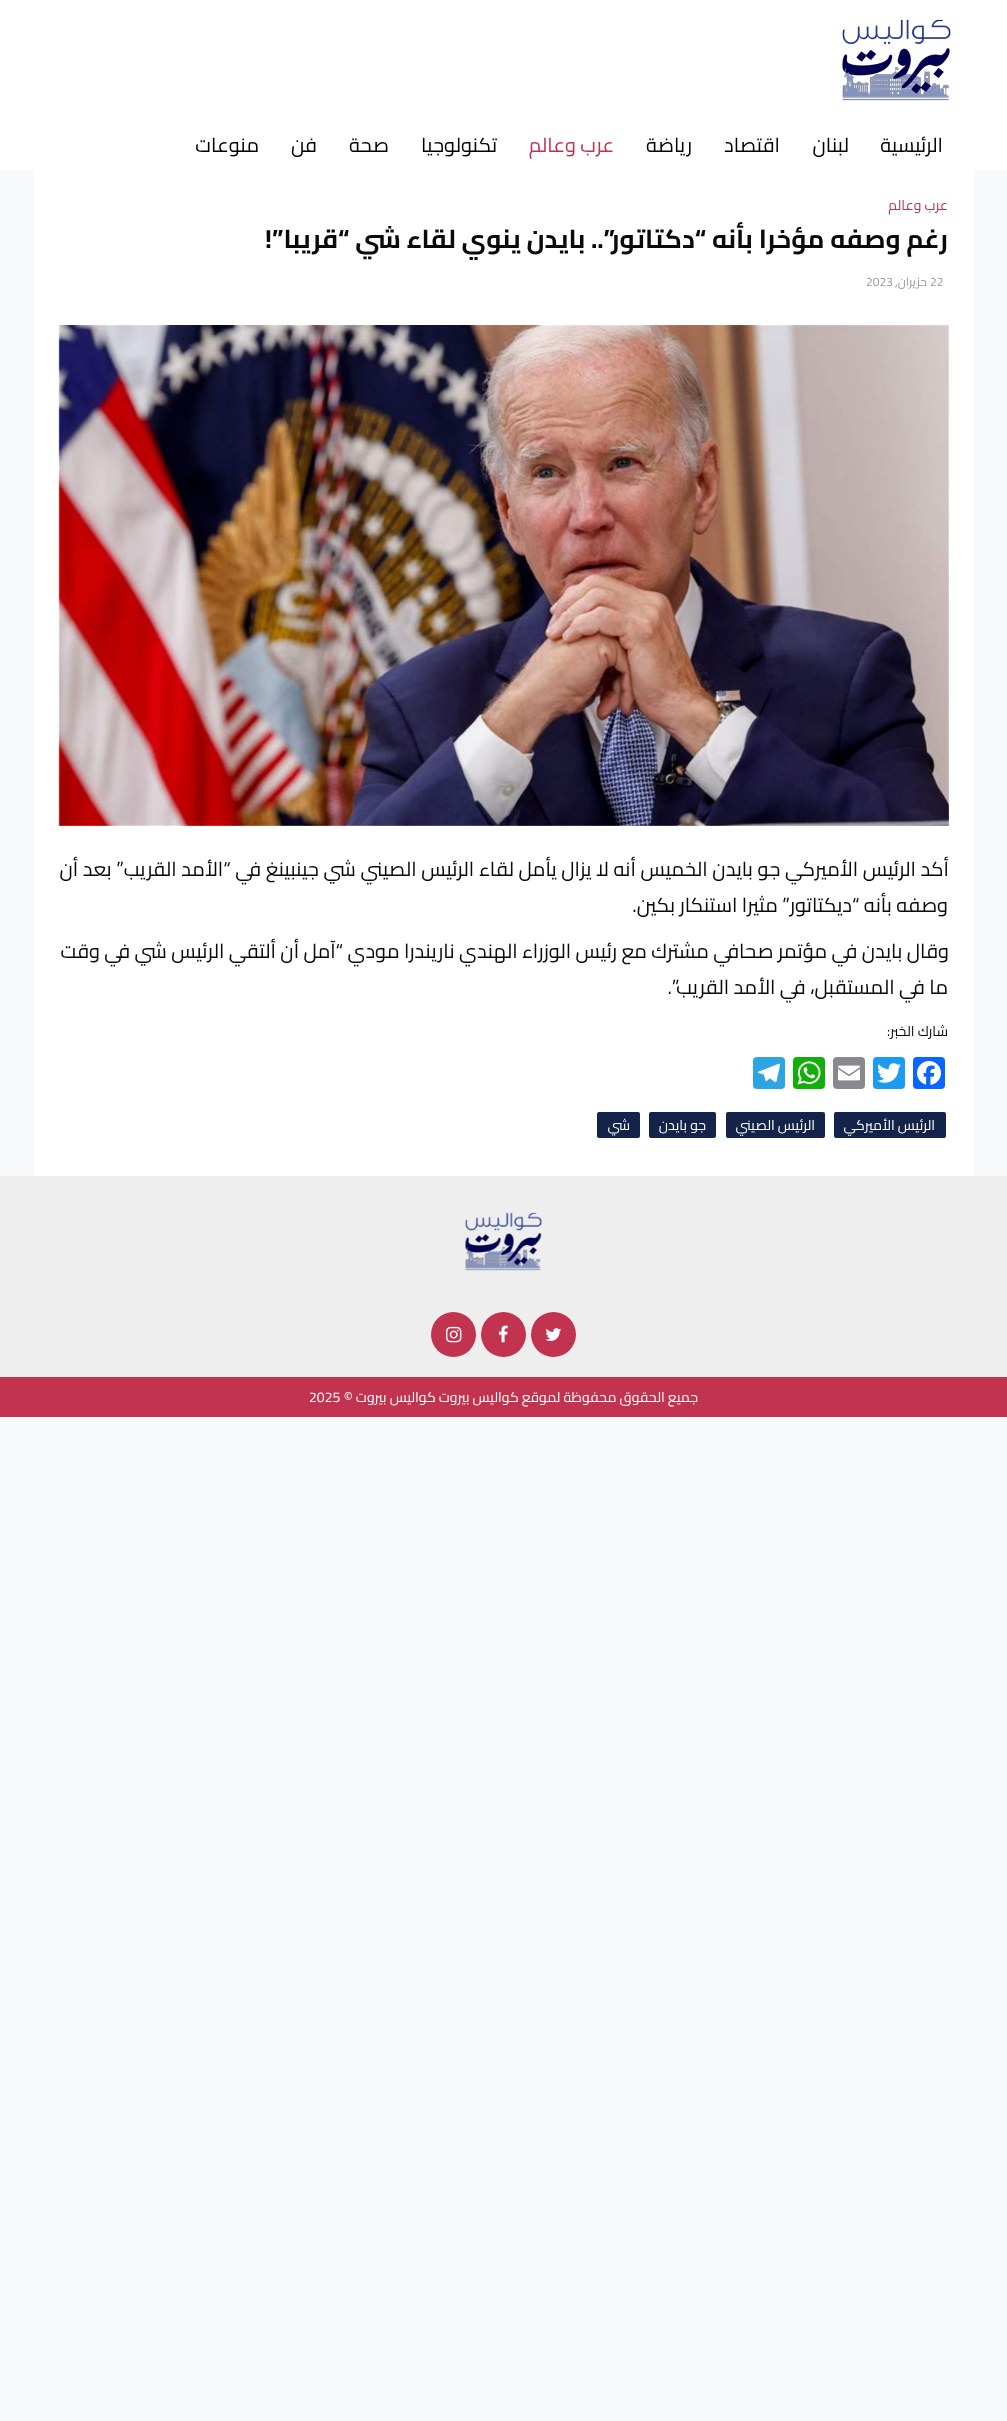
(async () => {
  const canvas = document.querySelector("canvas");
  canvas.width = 1007;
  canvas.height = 2421;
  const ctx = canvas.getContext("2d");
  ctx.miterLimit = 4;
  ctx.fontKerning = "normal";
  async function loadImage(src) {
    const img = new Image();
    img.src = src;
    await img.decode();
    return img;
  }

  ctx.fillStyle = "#f7f9fa";
  ctx.fillRect(0, 0, 1007, 2421);
  ctx.fillStyle = "#ffffff";
  ctx.fillRect(0, 0, 1007, 170);
  ctx.drawImage(await loadImage("img/1.png"), 842, 19, 109, 82);
  ctx.fillRect(34, 170, 940, 1006);
  ctx.drawImage(await loadImage("img/2.png"), 58, 325, 891, 501);
  ctx.fillStyle = "#0866ff";
  ctx.beginPath();
  ctx.roundRect(913, 1057, 32, 32, 4);
  ctx.fill();
  ctx.drawImage(await loadImage("img/3.png"), 917, 1061, 24, 24);
  ctx.fillStyle = "#1d9bf0";
  ctx.beginPath();
  ctx.roundRect(873, 1057, 32, 32, 4);
  ctx.fill();
  ctx.drawImage(await loadImage("img/4.png"), 877, 1063, 24, 20);
  ctx.fillStyle = "#888990";
  ctx.beginPath();
  ctx.roundRect(833, 1057, 32, 32, 4);
  ctx.fill();
  ctx.drawImage(await loadImage("img/5.png"), 838, 1065, 22, 16);
  ctx.fillStyle = "#12af0a";
  ctx.beginPath();
  ctx.roundRect(793, 1057, 32, 32, 4);
  ctx.fill();
  ctx.drawImage(await loadImage("img/6.png"), 797, 1061, 24, 24);
  ctx.fillStyle = "#2ca5e0";
  ctx.beginPath();
  ctx.roundRect(753, 1057, 32, 32, 4);
  ctx.fill();
  ctx.drawImage(await loadImage("img/7.png"), 758, 1063, 22, 20);
  ctx.fillStyle = "#14234a";
  ctx.beginPath();
  ctx.roundRect(834, 1112, 112, 26, 2);
  ctx.fill();
  ctx.beginPath();
  ctx.roundRect(726, 1112, 99, 26, 2);
  ctx.fill();
  ctx.beginPath();
  ctx.roundRect(649, 1112, 67, 26, 2);
  ctx.fill();
  ctx.beginPath();
  ctx.roundRect(597, 1112, 43, 26, 2);
  ctx.fill();
  ctx.fillStyle = "#eeeeee";
  ctx.fillRect(0, 1176, 1007, 201);
  ctx.drawImage(await loadImage("img/8.png"), 465, 1212, 77, 59);
  ctx.fillStyle = "#c1334e";
  ctx.beginPath();
  ctx.arc(553.5, 1334.5, 22.5, 0, Math.PI * 2);
  ctx.fill();
  ctx.drawImage(await loadImage("img/9.png"), 545, 1328, 17, 13);
  ctx.beginPath();
  ctx.arc(503.5, 1334.5, 22.5, 0, Math.PI * 2);
  ctx.fill();
  ctx.drawImage(await loadImage("img/10.png"), 498, 1325, 10, 18);
  ctx.beginPath();
  ctx.arc(453.5, 1334.5, 22.5, 0, Math.PI * 2);
  ctx.fill();
  ctx.drawImage(await loadImage("img/11.png"), 446, 1326, 16, 17);
  ctx.fillRect(0, 1377, 1007, 40);
  ctx.direction = "rtl";
  ctx.font = "20px Cairo";
  ctx.fillStyle = "#000000";
  for (const [text, x, y] of [
    ["الرئيسية", 943, 152],
    ["لبنان", 849, 152],
    ["اقتصاد", 780, 152],
    ["رياضة", 692, 152],
  ]) {
    ctx.fillText(text, x, y);
  }
  ctx.fillStyle = "#c1334e";
  ctx.fillText("عرب وعالم", 614, 152);
  ctx.fillStyle = "#000000";
  for (const [text, x, y] of [
    ["تكنولوجيا", 497, 152],
    ["صحة", 389, 152],
    ["فن", 317, 152],
    ["منوعات", 259, 152],
  ]) {
    ctx.fillText(text, x, y);
  }
  ctx.font = "14px Cairo";
  ctx.fillStyle = "#c1334e";
  ctx.fillText("عرب وعالم", 948, 210);
  ctx.font = "bold 26px Cairo";
  ctx.fillStyle = "#0a0a0a";
  ctx.fillText("رغم وصفه مؤخرا بأنه “دكتاتور”.. بايدن ينوي لقاء شي “قريبا”!", 948, 248);
  ctx.direction = "ltr";
  ctx.font = "12px Cairo";
  ctx.fillStyle = "#999999";
  ctx.fillText("22", 930, 286);
  ctx.direction = "rtl";
  ctx.fillText("حزيران,", 927, 286);
  ctx.direction = "ltr";
  ctx.fillText("2023", 866, 286);
  ctx.wordSpacing = "0.25px";
  ctx.direction = "rtl";
  ctx.font = "20px Cairo";
  ctx.fillStyle = "#0a0a0a";
  ctx.fillText("أكد الرئيس الأميركي جو بايدن الخميس أنه لا يزال يأمل لقاء الرئيس الصيني شي جينبينغ في “الأمد القريب” بعد أن", 949, 876);
  ctx.wordSpacing = "0px";
  for (const [text, x, y] of [
    ["وصفه بأنه “ديكتاتور” مثيرا استنكار بكين.", 948, 912],
    ["وقال بايدن في مؤتمر صحافي مشترك مع رئيس الوزراء الهندي ناريندرا مودي “آمل أن ألتقي الرئيس شي في وقت", 949, 958],
    ["ما في المستقبل، في الأمد القريب”.", 948, 994],
  ]) {
    ctx.fillText(text, x, y);
  }
  ctx.font = "14px Cairo";
  ctx.fillText("شارك الخبر:", 948, 1036);
  ctx.fillStyle = "#ffffff";
  for (const [text, x, y] of [
    ["الرئيس الأميركي", 935, 1130],
    ["الرئيس الصيني", 815, 1130],
    ["جو بايدن", 706, 1130],
    ["شي", 630, 1130],
    ["جميع الحقوق محفوظة لموقع كواليس بيروت كواليس بيروت ©", 698, 1402],
  ]) {
    ctx.fillText(text, x, y);
  }
  ctx.direction = "ltr";
  ctx.fillText("2025", 309, 1402);
})();
